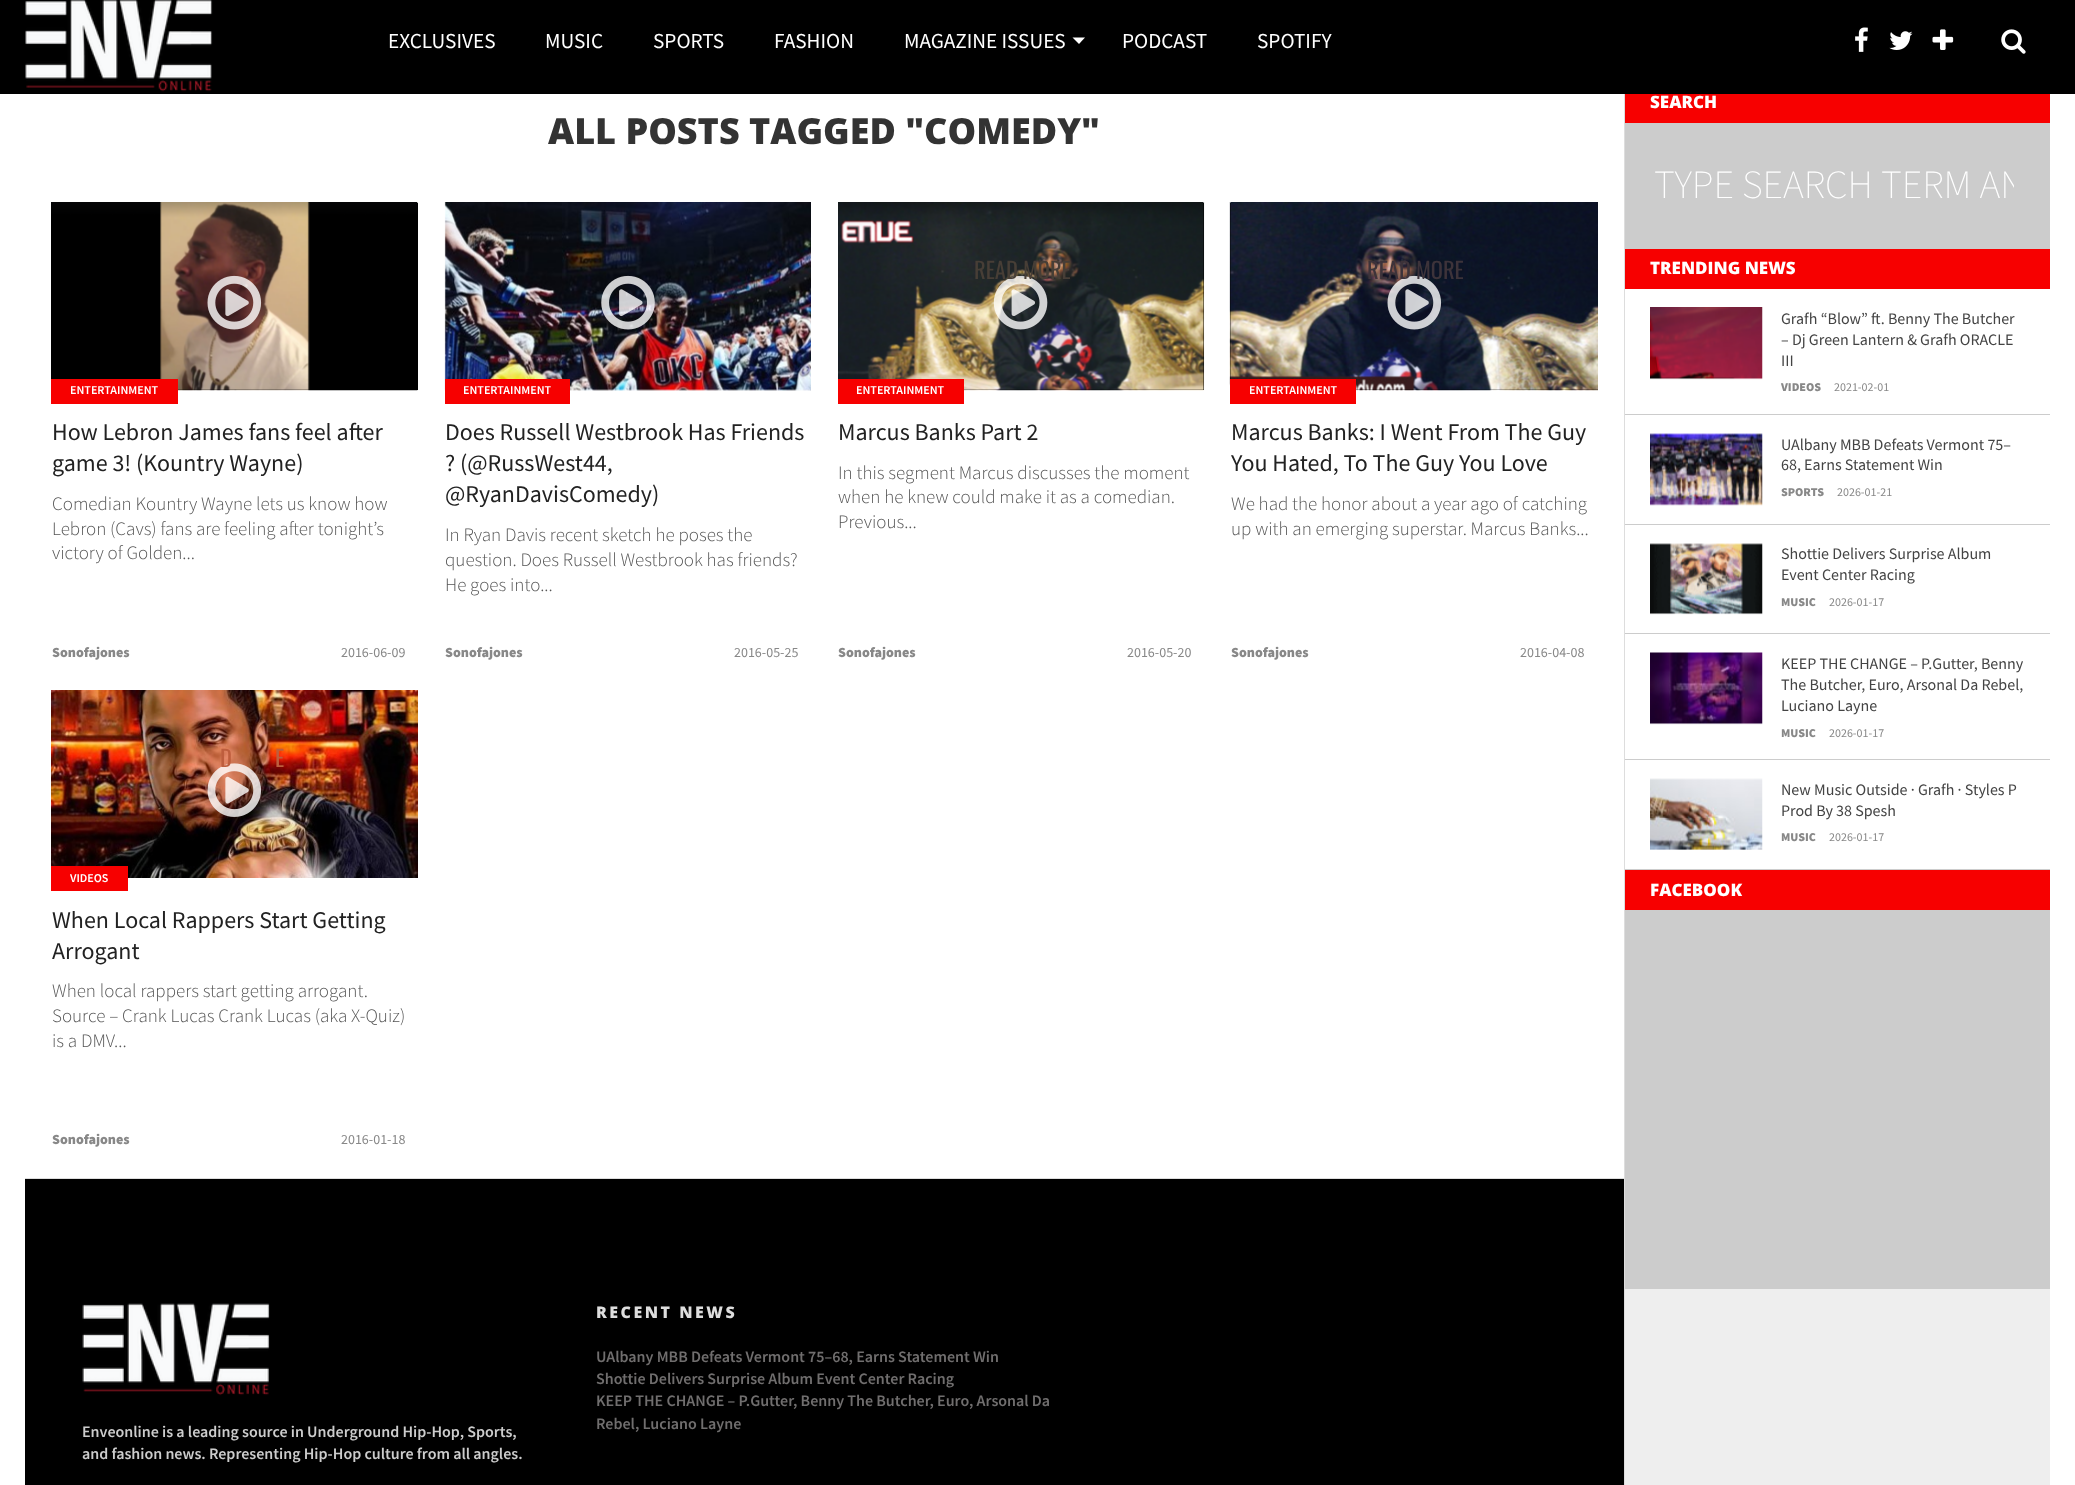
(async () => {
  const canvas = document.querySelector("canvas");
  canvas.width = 2075;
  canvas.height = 1485;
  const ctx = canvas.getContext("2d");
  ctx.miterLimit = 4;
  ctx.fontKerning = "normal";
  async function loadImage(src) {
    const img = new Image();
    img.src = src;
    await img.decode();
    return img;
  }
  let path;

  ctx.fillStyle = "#ffffff";
  ctx.fillRect(0, 0, 2075, 1485);
  ctx.fillStyle = "#000000";
  ctx.fillRect(0, 0, 2075, 94);
  ctx.drawImage(await loadImage("img/1.png"), 25, 0, 188, 92);
  ctx.fillStyle = "#ffffff";
  path = new Path2D("M1072.5 37.5H1085L1079 44Z");
  ctx.fill(path);
  ctx.drawImage(await loadImage("img/2.png"), 1855, 27, 13, 25);
  ctx.drawImage(await loadImage("img/3.png"), 1889, 31, 24, 19);
  ctx.drawImage(await loadImage("img/4.png"), 1932, 29, 22, 21);
  ctx.drawImage(await loadImage("img/5.png"), 2001, 29, 25, 25);
  ctx.fillStyle = "#dddddd";
  ctx.fillRect(25, 1178, 1599, 1);
  ctx.fillStyle = "#000000";
  ctx.fillRect(178, 203, 240, 187);
  ctx.drawImage(await loadImage("img/6.png"), 51, 202, 367, 189);
  ctx.drawImage(await loadImage("img/7.png"), 207, 275, 55, 55);
  ctx.fillStyle = "#f70000";
  ctx.fillRect(51, 379, 127, 25);
  ctx.drawImage(await loadImage("img/8.png"), 444, 202, 367, 189);
  ctx.drawImage(await loadImage("img/9.png"), 601, 275, 54, 55);
  ctx.fillRect(445, 379, 125, 25);
  ctx.fillStyle = "#000000";
  ctx.fillRect(964, 203, 240, 187);
  ctx.drawImage(await loadImage("img/10.png"), 838, 202, 367, 189);
  ctx.drawImage(await loadImage("img/11.png"), 993, 275, 55, 55);
  ctx.fillStyle = "#f70000";
  ctx.fillRect(838, 379, 126, 25);
  ctx.fillStyle = "#000000";
  ctx.fillRect(1230, 203, 368, 187);
  ctx.drawImage(await loadImage("img/12.png"), 1229, 202, 369, 189);
  ctx.drawImage(await loadImage("img/13.png"), 1387, 275, 55, 55);
  ctx.fillStyle = "#f70000";
  ctx.fillRect(1230, 379, 126, 25);
  ctx.drawImage(await loadImage("img/14.png"), 51, 690, 367, 188);
  ctx.drawImage(await loadImage("img/15.png"), 207, 763, 55, 54);
  for (const [x, y, w, h, color] of [
    [51, 866, 77, 25, "#f70000"],
    [1625, 1289, 425, 196, "#eeeeee"],
    [1624, 94, 1, 1391, "#dddddd"],
    [1625, 123, 425, 126, "#cccccc"],
    [1625, 94, 425, 29, "#f70000"],
    [1625, 869, 425, 1, "#cccccc"],
    [1625, 249, 425, 40, "#f70000"],
  ]) {
    ctx.fillStyle = color;
    ctx.fillRect(x, y, w, h);
  }
  ctx.drawImage(await loadImage("img/16.png"), 1650, 307, 113, 73);
  ctx.fillStyle = "#cccccc";
  ctx.fillRect(1625, 414, 425, 1);
  ctx.drawImage(await loadImage("img/17.png"), 1650, 433, 113, 73);
  ctx.fillRect(1625, 524, 425, 1);
  ctx.drawImage(await loadImage("img/18.png"), 1650, 543, 113, 72);
  ctx.fillRect(1625, 633, 425, 1);
  ctx.drawImage(await loadImage("img/19.png"), 1650, 652, 113, 73);
  ctx.fillRect(1625, 759, 425, 1);
  ctx.drawImage(await loadImage("img/20.png"), 1650, 778, 113, 72);
  for (const [x, y, w, h, color] of [
    [1625, 910, 425, 379, "#cccccc"],
    [1625, 870, 425, 40, "#f70000"],
    [25, 1179, 1599, 306, "#000000"],
  ]) {
    ctx.fillStyle = color;
    ctx.fillRect(x, y, w, h);
  }
  ctx.drawImage(await loadImage("img/21.png"), 82, 1303, 188, 93);
  ctx.font = "21.25px Source Sans Pro";
  ctx.fillStyle = "#ffffff";
  for (const [text, x, y] of [
    ["EXCLUSIVES", 388, 48],
    ["MUSIC", 545, 48],
    ["SPORTS", 653, 48],
    ["FASHION", 774, 48],
    ["MAGAZINE ISSUES", 904, 48],
    ["PODCAST", 1122, 48],
    ["SPOTIFY", 1257, 48],
  ]) {
    ctx.fillText(text, x, y);
  }
  ctx.font = "800 36px Open Sans";
  ctx.fillStyle = "#333333";
  ctx.fillText("ALL POSTS TAGGED \"COMEDY\"", 548, 144);
  ctx.font = "600 12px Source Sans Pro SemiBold";
  ctx.fillStyle = "#ffffff";
  ctx.fillText("ENTERTAINMENT", 70, 394);
  ctx.font = "24px Source Sans Pro";
  ctx.fillStyle = "#222222";
  ctx.fillText("How Lebron James fans feel after", 52, 440);
  ctx.fillText("game 3! (Kountry Wayne)", 52, 471);
  ctx.font = "300 19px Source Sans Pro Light";
  ctx.fillStyle = "#555555";
  for (const [text, x, y] of [
    ["Comedian Kountry Wayne lets us know how", 52, 510],
    ["Lebron (Cavs) fans are feeling after tonight’s", 52, 535],
    ["victory of Golden...", 52, 559],
  ]) {
    ctx.fillText(text, x, y);
  }
  ctx.font = "900 14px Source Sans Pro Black";
  ctx.fillStyle = "#888888";
  ctx.fillText("Sonofajones", 52, 657);
  ctx.font = "14px Source Sans Pro";
  ctx.fillText("2016-06-09", 341, 657);
  ctx.font = "600 12px Source Sans Pro SemiBold";
  ctx.fillStyle = "#ffffff";
  ctx.fillText("ENTERTAINMENT", 463, 394);
  ctx.font = "24px Source Sans Pro";
  ctx.fillStyle = "#222222";
  for (const [text, x, y] of [
    ["Does Russell Westbrook Has Friends", 445, 440],
    ["? (@RussWest44,", 445, 471],
    ["@RyanDavisComedy)", 445, 502],
  ]) {
    ctx.fillText(text, x, y);
  }
  ctx.font = "300 19px Source Sans Pro Light";
  ctx.fillStyle = "#555555";
  for (const [text, x, y] of [
    ["In Ryan Davis recent sketch he poses the", 445, 541],
    ["question. Does Russell Westbrook has friends?", 445, 566],
    ["He goes into...", 445, 591],
  ]) {
    ctx.fillText(text, x, y);
  }
  ctx.font = "900 14px Source Sans Pro Black";
  ctx.fillStyle = "#888888";
  ctx.fillText("Sonofajones", 445, 657);
  ctx.font = "14px Source Sans Pro";
  ctx.fillText("2016-05-25", 734, 657);
  ctx.font = "22.5px Oswald";
  ctx.fillStyle = "#473e36";
  ctx.fillText("READ MORE", 974, 279);
  ctx.font = "600 12px Source Sans Pro SemiBold";
  ctx.fillStyle = "#ffffff";
  ctx.fillText("ENTERTAINMENT", 856, 394);
  ctx.font = "24px Source Sans Pro";
  ctx.fillStyle = "#222222";
  ctx.fillText("Marcus Banks Part 2", 838, 440);
  ctx.font = "300 19px Source Sans Pro Light";
  ctx.fillStyle = "#555555";
  for (const [text, x, y] of [
    ["In this segment Marcus discusses the moment", 838, 479],
    ["when he knew could make it as a comedian.", 838, 503],
    ["Previous...", 838, 528],
  ]) {
    ctx.fillText(text, x, y);
  }
  ctx.font = "900 14px Source Sans Pro Black";
  ctx.fillStyle = "#888888";
  ctx.fillText("Sonofajones", 838, 657);
  ctx.font = "14px Source Sans Pro";
  ctx.fillText("2016-05-20", 1127, 657);
  ctx.font = "22.5px Oswald";
  ctx.fillStyle = "#3d333a";
  ctx.fillText("READ MORE", 1367, 279);
  ctx.font = "600 12px Source Sans Pro SemiBold";
  ctx.fillStyle = "#ffffff";
  ctx.fillText("ENTERTAINMENT", 1249, 394);
  ctx.font = "24px Source Sans Pro";
  ctx.fillStyle = "#222222";
  ctx.fillText("Marcus Banks: I Went From The Guy", 1231, 440);
  ctx.fillText("You Hated, To The Guy You Love", 1231, 471);
  ctx.font = "300 19px Source Sans Pro Light";
  ctx.fillStyle = "#555555";
  ctx.fillText("We had the honor about a year ago of catching", 1231, 510);
  ctx.fillText("up with an emerging superstar. Marcus Banks...", 1231, 535);
  ctx.font = "900 14px Source Sans Pro Black";
  ctx.fillStyle = "#888888";
  ctx.fillText("Sonofajones", 1231, 657);
  ctx.font = "14px Source Sans Pro";
  ctx.fillText("2016-04-08", 1520, 657);
  ctx.font = "22.5px Oswald";
  ctx.fillStyle = "#be5e3d";
  ctx.fillText("D", 220, 767);
  ctx.fillText("E", 275, 767);
  ctx.font = "600 12px Source Sans Pro SemiBold";
  ctx.fillStyle = "#ffffff";
  ctx.fillText("VIDEOS", 70, 882);
  ctx.font = "24px Source Sans Pro";
  ctx.fillStyle = "#222222";
  ctx.fillText("When Local Rappers Start Getting", 52, 928);
  ctx.fillText("Arrogant", 52, 959);
  ctx.font = "300 19px Source Sans Pro Light";
  ctx.fillStyle = "#555555";
  for (const [text, x, y] of [
    ["When local rappers start getting arrogant.", 52, 997],
    ["Source – Crank Lucas Crank Lucas (aka X-Quiz)", 52, 1022],
    ["is a DMV...", 52, 1047],
  ]) {
    ctx.fillText(text, x, y);
  }
  ctx.font = "900 14px Source Sans Pro Black";
  ctx.fillStyle = "#888888";
  ctx.fillText("Sonofajones", 52, 1144);
  ctx.font = "14px Source Sans Pro";
  ctx.fillText("2016-01-18", 341, 1144);
  ctx.font = "800 17px Open Sans";
  ctx.fillStyle = "#ffffff";
  ctx.fillText("SEARCH", 1650, 108);
  ctx.save();
  ctx.beginPath();
  ctx.rect(1654, 160, 360, 50);
  ctx.clip();
  ctx.font = "200 40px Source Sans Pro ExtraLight";
  ctx.fillText("TYPE SEARCH TERM AN", 1654, 198);
  ctx.restore();
  ctx.fillText("TRENDING NEWS", 1650, 274);
  ctx.font = "16px Source Sans Pro";
  ctx.fillStyle = "#444444";
  for (const [text, x, y] of [
    ["Grafh “Blow” ft. Benny The Butcher", 1781, 324],
    ["– Dj Green Lantern & Grafh ORACLE", 1781, 345],
    ["III", 1781, 366],
  ]) {
    ctx.fillText(text, x, y);
  }
  ctx.font = "900 12px Source Sans Pro Black";
  ctx.fillStyle = "#888888";
  ctx.fillText("VIDEOS", 1781, 391);
  ctx.font = "12px Source Sans Pro";
  ctx.fillText("2021-02-01", 1834, 391);
  ctx.font = "16px Source Sans Pro";
  ctx.fillStyle = "#444444";
  ctx.fillText("UAlbany MBB Defeats Vermont 75–", 1781, 450);
  ctx.fillText("68, Earns Statement Win", 1781, 470);
  ctx.font = "900 12px Source Sans Pro Black";
  ctx.fillStyle = "#888888";
  ctx.fillText("SPORTS", 1781, 496);
  ctx.font = "12px Source Sans Pro";
  ctx.fillText("2026-01-21", 1837, 496);
  ctx.font = "16px Source Sans Pro";
  ctx.fillStyle = "#444444";
  ctx.fillText("Shottie Delivers Surprise Album", 1781, 559);
  ctx.fillText("Event Center Racing", 1781, 580);
  ctx.font = "900 12px Source Sans Pro Black";
  ctx.fillStyle = "#888888";
  ctx.fillText("MUSIC", 1781, 606);
  ctx.font = "12px Source Sans Pro";
  ctx.fillText("2026-01-17", 1829, 606);
  ctx.font = "16px Source Sans Pro";
  ctx.fillStyle = "#444444";
  for (const [text, x, y] of [
    ["KEEP THE CHANGE – P.Gutter, Benny", 1781, 669],
    ["The Butcher, Euro, Arsonal Da Rebel,", 1781, 690],
    ["Luciano Layne", 1781, 711],
  ]) {
    ctx.fillText(text, x, y);
  }
  ctx.font = "900 12px Source Sans Pro Black";
  ctx.fillStyle = "#888888";
  ctx.fillText("MUSIC", 1781, 737);
  ctx.font = "12px Source Sans Pro";
  ctx.fillText("2026-01-17", 1829, 737);
  ctx.font = "16px Source Sans Pro";
  ctx.fillStyle = "#444444";
  ctx.fillText("New Music Outside · Grafh · Styles P", 1781, 795);
  ctx.fillText("Prod By 38 Spesh", 1781, 816);
  ctx.font = "900 12px Source Sans Pro Black";
  ctx.fillStyle = "#888888";
  ctx.fillText("MUSIC", 1781, 841);
  ctx.font = "12px Source Sans Pro";
  ctx.fillText("2026-01-17", 1829, 841);
  ctx.font = "800 17px Open Sans";
  ctx.fillStyle = "#ffffff";
  ctx.fillText("FACEBOOK", 1650, 896);
  ctx.letterSpacing = "2.5px";
  ctx.font = "800 16px Open Sans";
  ctx.fillStyle = "#dddddd";
  ctx.fillText("RECENT NEWS", 596, 1318);
  ctx.letterSpacing = "0px";
  ctx.font = "600 16px Source Sans Pro SemiBold";
  ctx.fillStyle = "#706e6e";
  for (const [text, x, y] of [
    ["UAlbany MBB Defeats Vermont 75–68, Earns Statement Win", 596, 1362],
    ["Shottie Delivers Surprise Album Event Center Racing", 596, 1384],
    ["KEEP THE CHANGE – P.Gutter, Benny The Butcher, Euro, Arsonal Da", 596, 1406],
    ["Rebel, Luciano Layne", 596, 1429],
  ]) {
    ctx.fillText(text, x, y);
  }
  ctx.fillStyle = "#cccccc";
  ctx.fillText("Enveonline is a leading source in Underground Hip-Hop, Sports,", 82, 1437);
  ctx.fillText("and fashion news. Representing Hip-Hop culture from all angles.", 82, 1459);
})();
